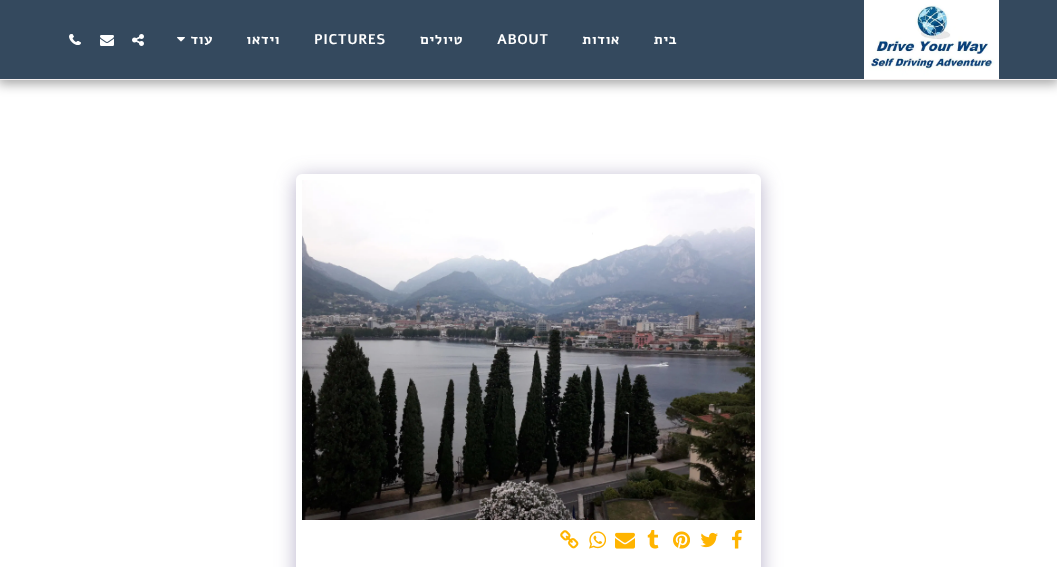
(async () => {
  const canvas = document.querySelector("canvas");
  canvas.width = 1057;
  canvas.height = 567;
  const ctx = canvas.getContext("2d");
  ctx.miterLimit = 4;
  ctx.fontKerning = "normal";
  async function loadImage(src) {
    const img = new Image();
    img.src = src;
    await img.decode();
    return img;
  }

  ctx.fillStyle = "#ffffff";
  ctx.fillRect(0, 0, 1057, 567);
  ctx.fillStyle = "rgba(0, 0, 0, 0.35)";
  ctx.filter = "blur(6px)";
  ctx.beginPath();
  ctx.rect(-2, 0, 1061, 84);
  ctx.fill();
  ctx.filter = "none";
  ctx.fillStyle = "#34495e";
  ctx.fillRect(0, 0, 1057, 79);
  ctx.fillStyle = "#f3eeee";
  ctx.fillRect(0, 79, 1057, 1);
  ctx.drawImage(await loadImage("img/1.png"), 864, 0, 135, 79);
  ctx.drawImage(await loadImage("img/2.png"), 177, 37, 8, 5);
  ctx.drawImage(await loadImage("img/3.png"), 132, 34, 12, 12);
  ctx.drawImage(await loadImage("img/4.png"), 100, 35, 14, 11);
  ctx.drawImage(await loadImage("img/5.png"), 69, 34, 11, 11);
  ctx.drawImage(await loadImage("img/6.png"), 70, 34, 11, 11);
  ctx.fillStyle = "rgba(77, 63, 122, 0.4)";
  ctx.filter = "blur(10px)";
  ctx.beginPath();
  ctx.roundRect(296, 177, 465, 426, 6);
  ctx.fill();
  ctx.filter = "none";
  ctx.fillStyle = "#ffffff";
  ctx.beginPath();
  ctx.roundRect(296, 174, 465, 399, 6);
  ctx.fill();
  ctx.drawImage(await loadImage("img/7.png"), 302, 180, 453, 340);
  ctx.drawImage(await loadImage("img/8.png"), 732, 530, 10, 19);
  ctx.drawImage(await loadImage("img/9.png"), 700, 532, 18, 16);
  ctx.drawImage(await loadImage("img/10.png"), 673, 531, 17, 18);
  ctx.drawImage(await loadImage("img/11.png"), 647, 530, 12, 19);
  ctx.drawImage(await loadImage("img/12.png"), 615, 532, 20, 17);
  ctx.drawImage(await loadImage("img/13.png"), 589, 531, 17, 18);
  ctx.drawImage(await loadImage("img/14.png"), 560, 530, 19, 19);
  ctx.letterSpacing = "0.5px";
  ctx.direction = "rtl";
  ctx.font = "bold 14px Alef";
  ctx.fillText("בית", 677, 44);
  ctx.fillText("אודות", 620, 44);
  ctx.direction = "ltr";
  ctx.fillText("ABOUT", 497, 44);
  ctx.direction = "rtl";
  ctx.fillText("טיולים", 463, 44);
  ctx.direction = "ltr";
  ctx.fillText("PICTURES", 314, 44);
  ctx.direction = "rtl";
  ctx.fillText("וידאו", 280, 44);
  ctx.fillText("עוד", 213, 44);
})();
